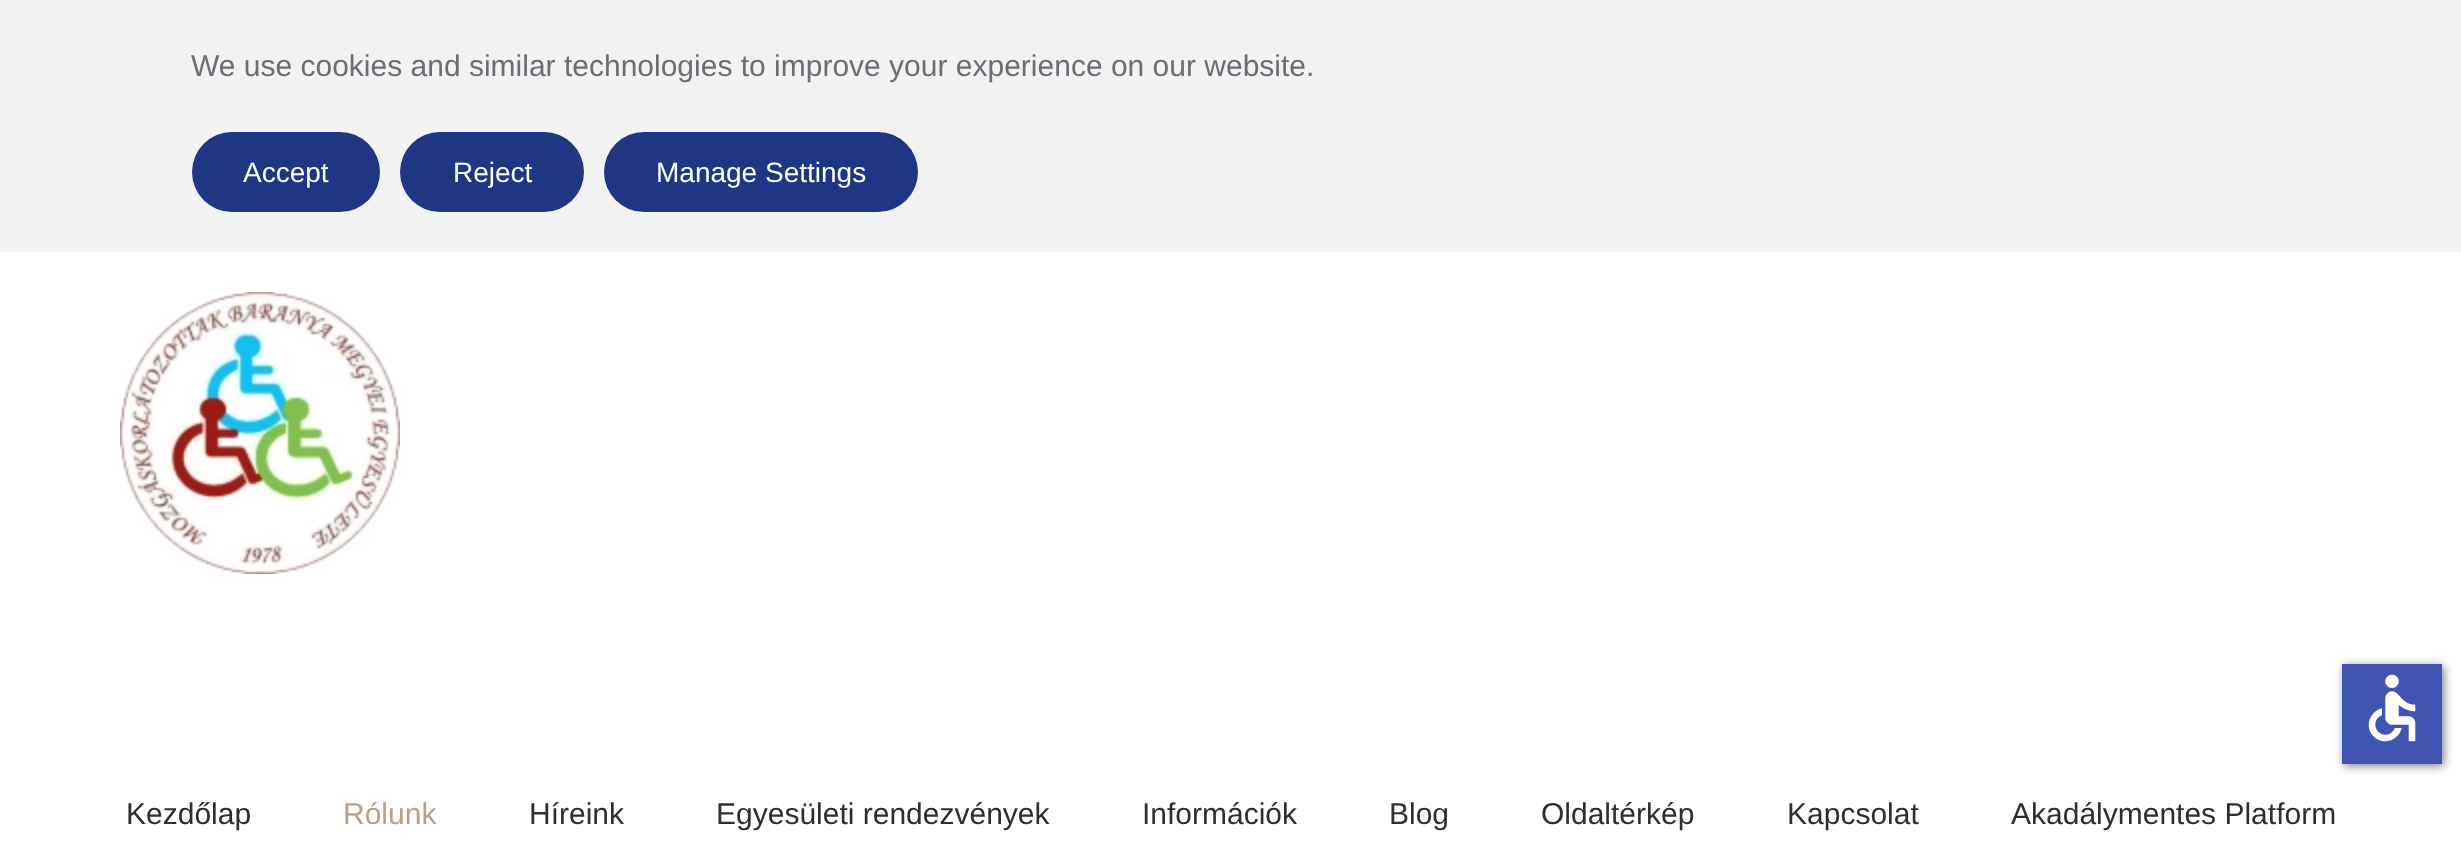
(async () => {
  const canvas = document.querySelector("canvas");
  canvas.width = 2461;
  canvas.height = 863;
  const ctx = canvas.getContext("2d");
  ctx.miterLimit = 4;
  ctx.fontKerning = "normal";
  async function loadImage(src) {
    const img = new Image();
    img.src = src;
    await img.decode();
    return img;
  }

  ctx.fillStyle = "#ffffff";
  ctx.fillRect(0, 0, 2461, 863);
  ctx.fillStyle = "#f2f2f2";
  ctx.fillRect(0, 0, 2461, 252);
  ctx.fillStyle = "#1e3684";
  ctx.beginPath();
  ctx.roundRect(192, 132, 188, 80, 40);
  ctx.fill();
  ctx.beginPath();
  ctx.roundRect(400, 132, 184, 80, 40);
  ctx.fill();
  ctx.beginPath();
  ctx.roundRect(604, 132, 314, 80, 40);
  ctx.fill();
  ctx.fillStyle = "rgba(0, 0, 0, 0.5)";
  ctx.filter = "blur(5px)";
  ctx.beginPath();
  ctx.rect(2344, 666, 100, 100);
  ctx.fill();
  ctx.filter = "none";
  ctx.fillStyle = "#4054b2";
  ctx.fillRect(2342, 664, 100, 100);
  ctx.drawImage(await loadImage("img/1.png"), 2368, 674, 48, 68);
  ctx.drawImage(await loadImage("img/2.png"), 120, 292, 280, 282);
  ctx.font = "30px Liberation Sans";
  ctx.fillStyle = "#6c6d74";
  ctx.fillText("We use cookies and similar technologies to improve your experience on our website.", 191, 76);
  ctx.font = "28px Liberation Sans";
  ctx.fillStyle = "#ffffff";
  for (const [text, x, y] of [
    ["Accept", 243, 182],
    ["Reject", 453, 182],
    ["Manage Settings", 656, 182],
  ]) {
    ctx.fillText(text, x, y);
  }
  ctx.font = "30px Liberation Sans";
  ctx.fillStyle = "#2d2e33";
  ctx.fillText("Kezdőlap", 126, 824);
  ctx.fillStyle = "#b7a088";
  ctx.fillText("Rólunk", 343, 824);
  ctx.fillStyle = "#2d2e33";
  for (const [text, x, y] of [
    ["Híreink", 529, 824],
    ["Egyesületi rendezvények", 716, 824],
    ["Információk", 1142, 824],
    ["Blog", 1389, 824],
    ["Oldaltérkép", 1541, 824],
    ["Kapcsolat", 1787, 824],
    ["Akadálymentes Platform", 2011, 824],
  ]) {
    ctx.fillText(text, x, y);
  }
})();
